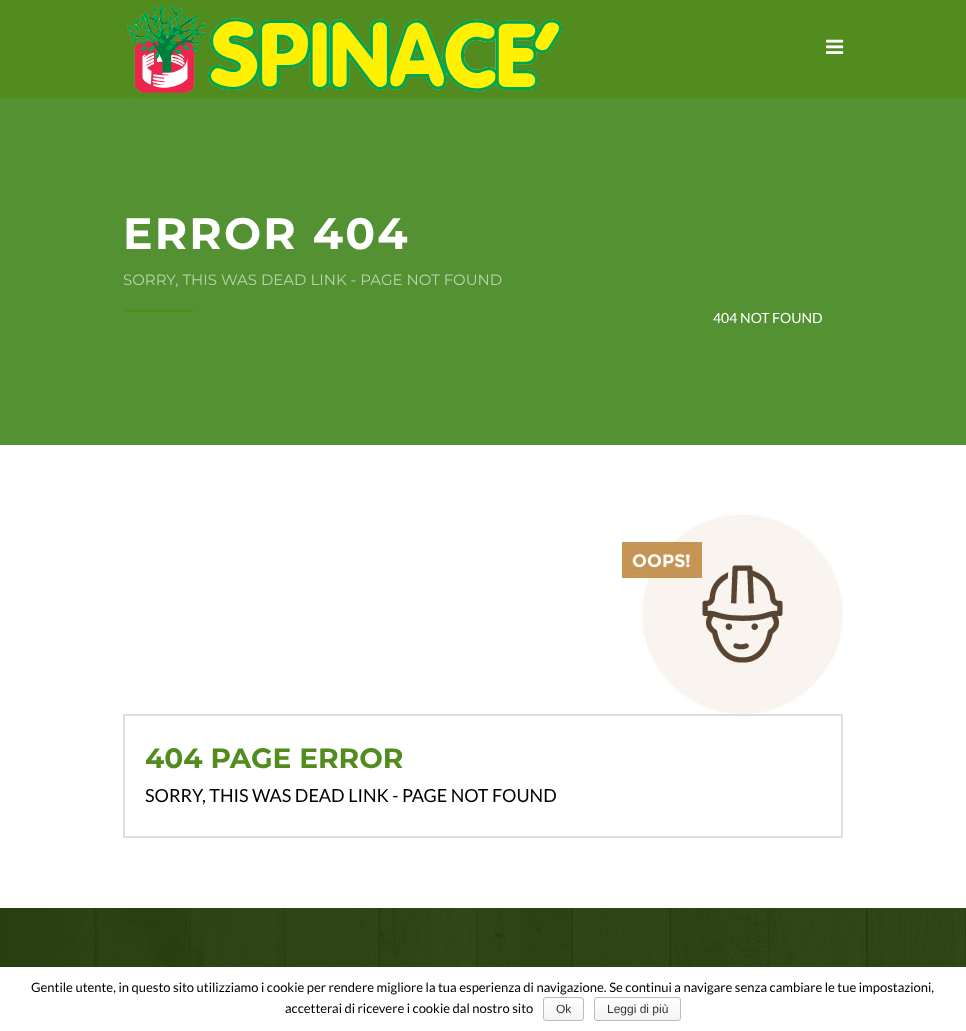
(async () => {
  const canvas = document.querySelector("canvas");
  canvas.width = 966;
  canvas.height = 1031;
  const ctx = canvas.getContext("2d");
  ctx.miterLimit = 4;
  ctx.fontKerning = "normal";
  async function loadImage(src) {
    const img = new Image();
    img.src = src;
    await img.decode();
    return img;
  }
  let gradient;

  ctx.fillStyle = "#ffffff";
  ctx.fillRect(0, 0, 966, 1031);
  ctx.fillStyle = "#528c1f";
  ctx.fillRect(0, 0, 966, 98);
  ctx.drawImage(await loadImage("img/1.png"), 123, 5, 439, 93);
  ctx.drawImage(await loadImage("img/2.png"), 826, 39, 18, 15);
  ctx.fillStyle = "#549133";
  ctx.fillRect(0, 98, 966, 347);
  ctx.fillStyle = "#528c1f";
  ctx.fillRect(123, 309, 70, 3);
  ctx.drawImage(await loadImage("img/3.png"), 622, 515, 221, 199);
  ctx.strokeStyle = "#dddddd";
  ctx.lineWidth = 2;
  ctx.strokeRect(124, 715, 718, 122);
  ctx.drawImage(await loadImage("img/4.png"), 0, 908, 966, 59);
  ctx.save();
  ctx.beginPath();
  ctx.roundRect(543, 997, 41, 24, 3);
  ctx.clip();
  gradient = ctx.createLinearGradient(564, 998, 564, 1020);
  gradient.addColorStop(0, "#fefefe");
  gradient.addColorStop(1, "#f4f4f4");
  ctx.fillStyle = gradient;
  ctx.fillRect(543, 998, 41, 22);
  ctx.restore();
  ctx.beginPath();
  ctx.roundRect(543.5, 997.5, 40, 23, 2.5);
  ctx.strokeStyle = "#bbbbbb";
  ctx.lineWidth = 1;
  ctx.stroke();
  ctx.save();
  ctx.beginPath();
  ctx.roundRect(594, 997, 87, 24, 3);
  ctx.clip();
  gradient = ctx.createLinearGradient(638, 998, 638, 1020);
  gradient.addColorStop(0, "#fefefe");
  gradient.addColorStop(1, "#f4f4f4");
  ctx.fillStyle = gradient;
  ctx.fillRect(594, 998, 87, 22);
  ctx.restore();
  ctx.beginPath();
  ctx.roundRect(594.5, 997.5, 86, 23, 2.5);
  ctx.stroke();
  ctx.letterSpacing = "2.25px";
  ctx.font = "bold 44px Montserrat";
  ctx.fillStyle = "#ffffff";
  ctx.fillText("ERROR 404", 123, 249);
  ctx.letterSpacing = "0px";
  ctx.font = "15px Montserrat";
  ctx.fillStyle = "#bbd3ad";
  ctx.fillText("SORRY, THIS WAS DEAD LINK - PAGE NOT FOUND", 123, 285);
  ctx.font = "14px Lato";
  ctx.fillStyle = "#ffffff";
  ctx.fillText("404 NOT FOUND", 713, 323);
  ctx.font = "bold 28px Montserrat";
  ctx.fillStyle = "#528c1f";
  ctx.fillText("404 PAGE ERROR", 145, 768);
  ctx.font = "18px Lato";
  ctx.fillStyle = "#000000";
  ctx.fillText("SORRY, THIS WAS DEAD LINK - PAGE NOT FOUND", 145, 802);
  ctx.font = "13px Lato";
  ctx.fillText("Gentile utente, in questo sito utilizziamo i cookie per rendere migliore la tua esperienza di navigazione. Se continui a navigare senza cambiare le tue impostazioni,", 31, 992);
  ctx.fillText("accetterai di ricevere i cookie dal nostro sito", 285, 1013);
  ctx.font = "12px Liberation Sans";
  ctx.fillStyle = "#333333";
  ctx.fillText("Ok", 556, 1013);
  ctx.fillText("Leggi di più", 607, 1013);
})();
